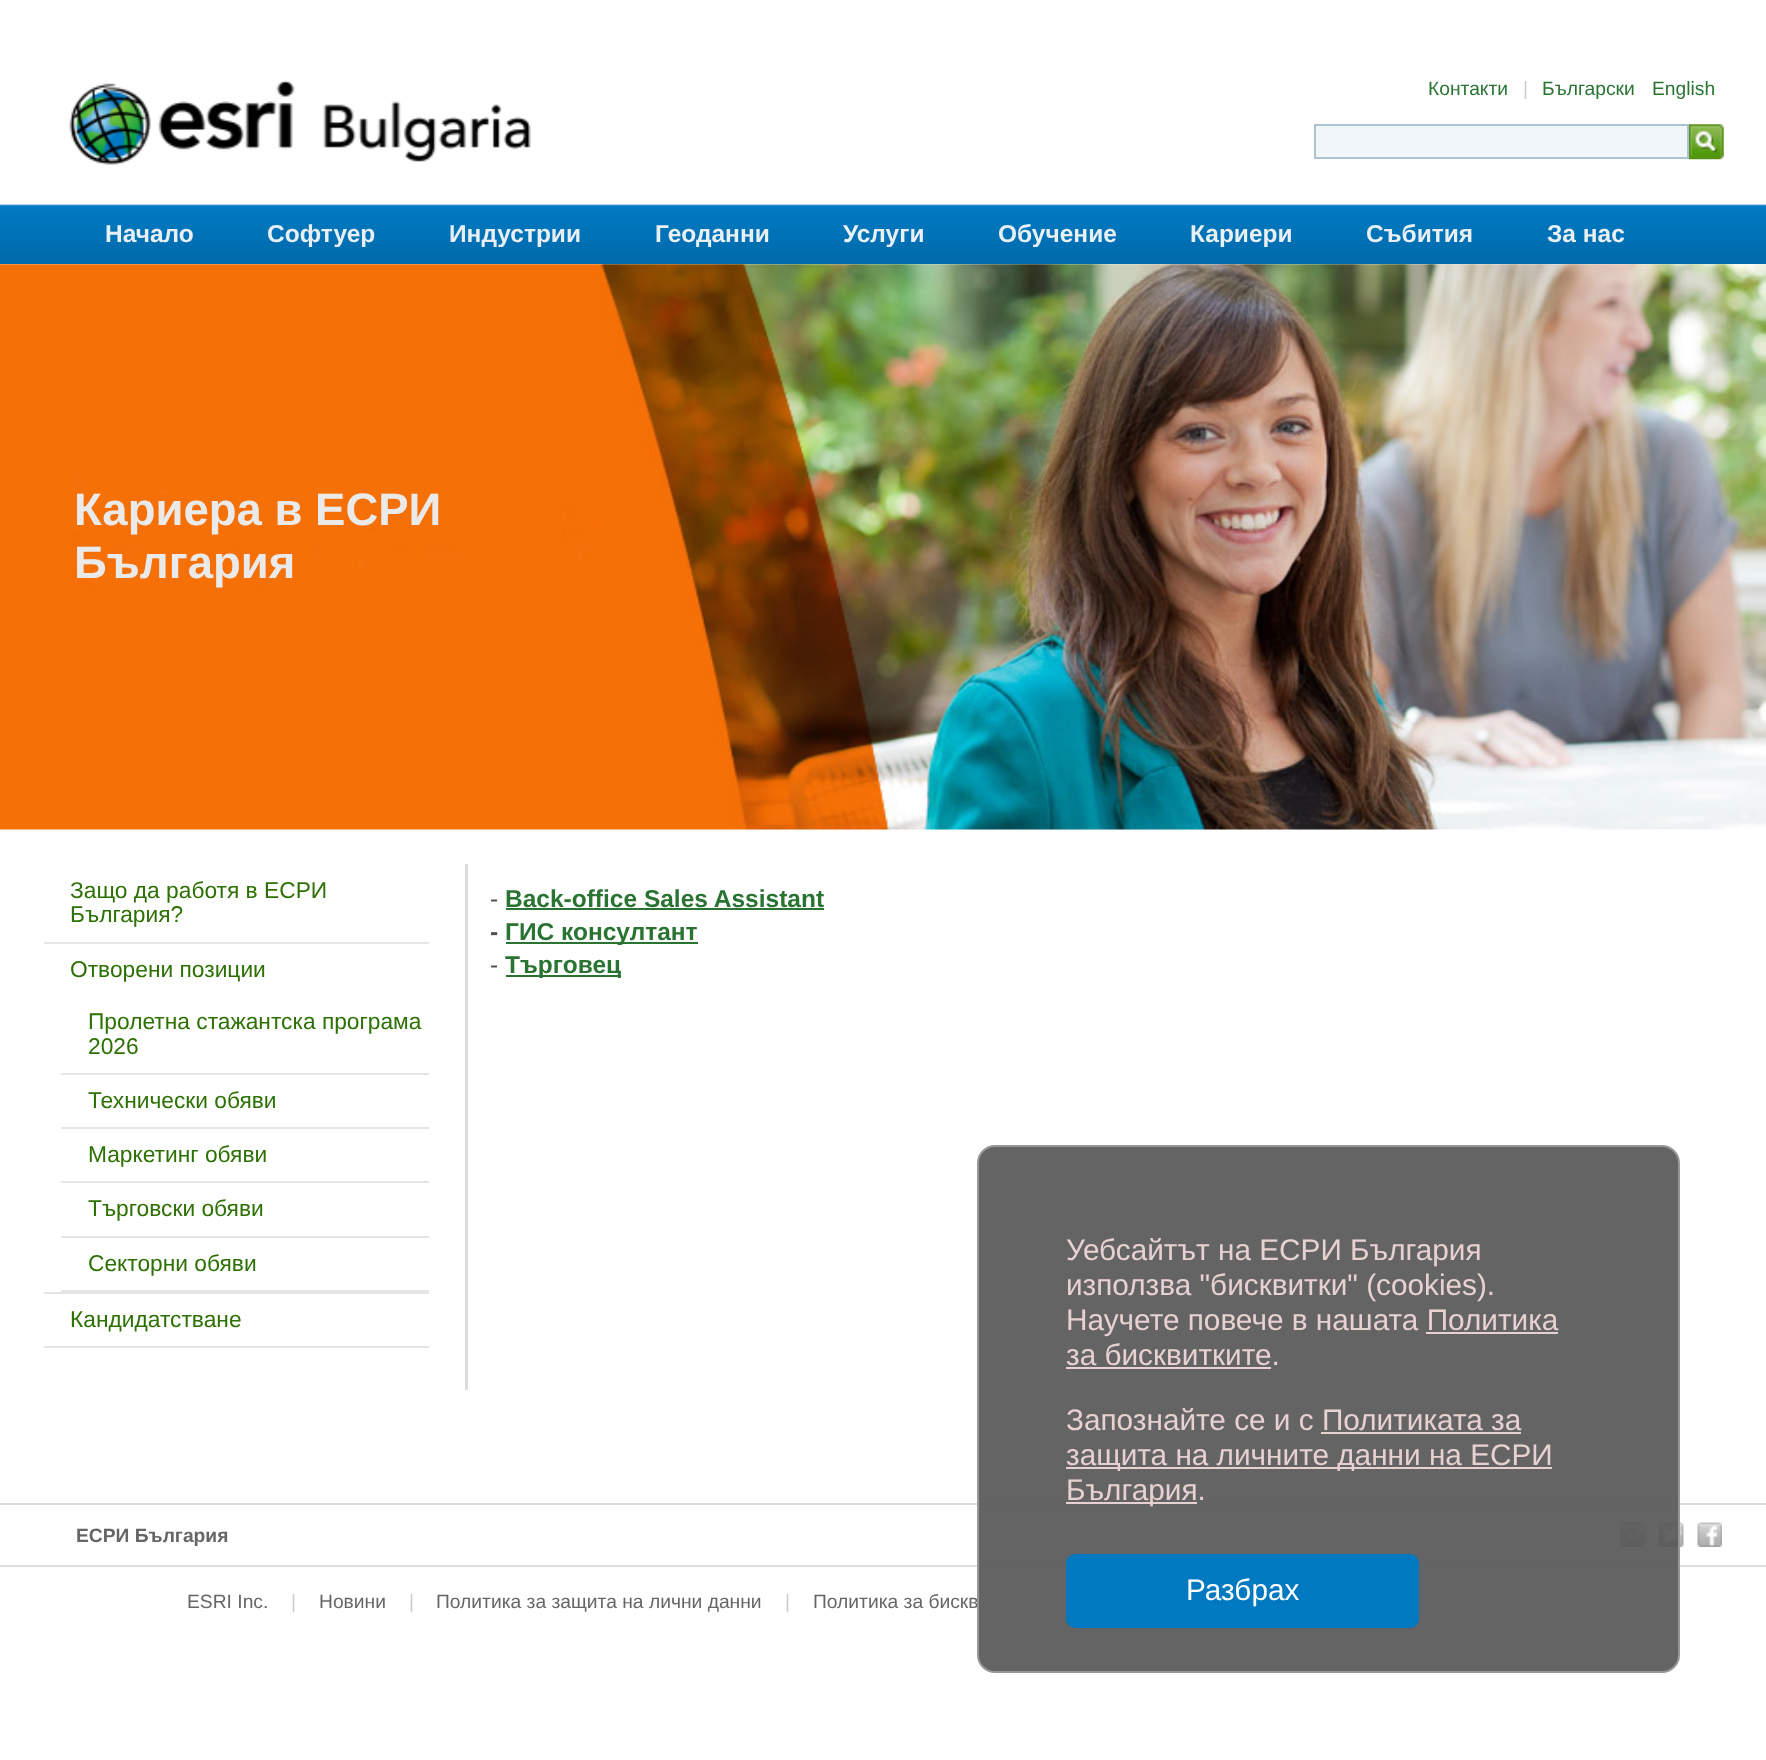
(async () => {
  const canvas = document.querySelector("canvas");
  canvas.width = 1766;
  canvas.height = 1760;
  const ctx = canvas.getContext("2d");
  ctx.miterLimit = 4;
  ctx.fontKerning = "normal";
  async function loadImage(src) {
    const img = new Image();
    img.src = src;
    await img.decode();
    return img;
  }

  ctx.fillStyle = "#ffffff";
  ctx.fillRect(0, 0, 1766, 1760);
  ctx.drawImage(await loadImage("img/1.png"), 0, 204, 1766, 60);
  ctx.drawImage(await loadImage("img/2.png"), 69, 80, 462, 85);
  ctx.drawImage(await loadImage("img/3.png"), 1688, 124, 36, 36);
  ctx.fillStyle = "#f0f6fa";
  ctx.beginPath();
  ctx.rect(1315, 125, 373, 33);
  ctx.fill();
  ctx.strokeStyle = "#acc2d1";
  ctx.lineWidth = 2;
  ctx.stroke();
  ctx.drawImage(await loadImage("img/4.png"), 0, 264, 1766, 566);
  for (const [x, y, w, h, color] of [
    [465, 864, 3, 526, "#dcdcdc"],
    [44, 942, 385, 2, "#e5e5e5"],
    [44, 1292, 385, 2, "#e5e5e5"],
    [61, 1073, 368, 2, "#e5e5e5"],
    [61, 1127, 368, 2, "#e5e5e5"],
    [61, 1181, 368, 2, "#e5e5e5"],
    [61, 1236, 368, 2, "#e5e5e5"],
    [61, 1290, 368, 2, "#e5e5e5"],
    [44, 1346, 385, 2, "#e5e5e5"],
    [506, 908, 318, 2, "#2a7433"],
    [506, 942, 192, 2, "#2a7433"],
    [506, 975, 115, 2, "#2a7433"],
    [0, 1503, 1766, 2, "#dedede"],
  ]) {
    ctx.fillStyle = color;
    ctx.fillRect(x, y, w, h);
  }
  ctx.drawImage(await loadImage("img/5.png"), 1620, 1522, 25, 25);
  ctx.drawImage(await loadImage("img/6.png"), 1659, 1522, 25, 25);
  ctx.drawImage(await loadImage("img/7.png"), 1697, 1522, 25, 25);
  ctx.fillRect(0, 1565, 1766, 2);
  ctx.font = "19.25px Liberation Sans";
  ctx.fillStyle = "#2a7433";
  ctx.fillText("Контакти", 1428, 95);
  ctx.fillStyle = "#cccccc";
  ctx.fillText("|", 1523, 95);
  ctx.fillStyle = "#2a7433";
  ctx.fillText("Български", 1542, 95);
  ctx.fillText("English", 1652, 95);
  ctx.font = "bold 24.5px Liberation Sans";
  ctx.fillStyle = "#e8eff5";
  for (const [text, x, y] of [
    ["Начало", 105, 242],
    ["Софтуер", 267, 242],
    ["Индустрии", 449, 242],
    ["Геоданни", 655, 242],
    ["Услуги", 843, 242],
    ["Обучение", 998, 242],
    ["Кариери", 1190, 242],
    ["Събития", 1366, 242],
    ["За нас", 1547, 242],
  ]) {
    ctx.fillText(text, x, y);
  }
  ctx.font = "bold 45.5px Liberation Sans";
  ctx.fillStyle = "#eaeaea";
  ctx.fillText("Кариера в ЕСРИ", 74, 525);
  ctx.fillText("България", 74, 578);
  ctx.font = "22.75px Liberation Sans";
  ctx.fillStyle = "#2d7104";
  for (const [text, x, y] of [
    ["Защо да работя в ЕСРИ", 70, 898],
    ["България?", 70, 922],
    ["Отворени позиции", 70, 977],
    ["Пролетна стажантска програма", 88, 1029],
    ["2026", 88, 1054],
    ["Технически обяви", 88, 1108],
    ["Маркетинг обяви", 88, 1162],
    ["Търговски обяви", 88, 1216],
    ["Секторни обяви", 88, 1271],
    ["Кандидатстване", 70, 1327],
  ]) {
    ctx.fillText(text, x, y);
  }
  ctx.font = "24.5px Liberation Sans";
  ctx.fillStyle = "#4d4d4d";
  ctx.fillText("-", 490, 907);
  ctx.font = "bold 24.5px Liberation Sans";
  ctx.fillStyle = "#2a7433";
  ctx.fillText("Back-office Sales Assistant", 505, 907);
  ctx.fillStyle = "#4d4d4d";
  ctx.fillText("-", 490, 940);
  ctx.fillStyle = "#2a7433";
  ctx.fillText("ГИС консултант", 505, 940);
  ctx.font = "24.5px Liberation Sans";
  ctx.fillStyle = "#4d4d4d";
  ctx.fillText("-", 490, 973);
  ctx.font = "bold 24.5px Liberation Sans";
  ctx.fillStyle = "#2a7433";
  ctx.fillText("Търговец", 505, 973);
  ctx.font = "bold 19.25px Liberation Sans";
  ctx.fillStyle = "#666666";
  ctx.fillText("ЕСРИ България", 76, 1542);
  ctx.font = "19.25px Liberation Sans";
  ctx.fillText("ESRI Inc.", 187, 1608);
  ctx.fillStyle = "#cccccc";
  ctx.fillText("|", 291, 1608);
  ctx.fillStyle = "#666666";
  ctx.fillText("Новини", 319, 1608);
  ctx.fillStyle = "#cccccc";
  ctx.fillText("|", 409, 1608);
  ctx.fillStyle = "#666666";
  ctx.fillText("Политика за защита на лични данни", 436, 1608);
  ctx.fillStyle = "#cccccc";
  ctx.fillText("|", 785, 1608);
  ctx.fillStyle = "#666666";
  ctx.fillText("Политика за бискв", 813, 1608);
  ctx.fillStyle = "rgba(88, 87, 87, 0.92)";
  ctx.beginPath();
  ctx.roundRect(978, 1146, 701, 526, 17);
  ctx.fill();
  ctx.strokeStyle = "#979797";
  ctx.stroke();
  ctx.fillStyle = "#0079c1";
  ctx.beginPath();
  ctx.roundRect(1067, 1555, 351, 72, 8);
  ctx.fill();
  ctx.strokeStyle = "#0079c1";
  ctx.stroke();
  ctx.font = "29.75px Liberation Sans";
  ctx.fillStyle = "#ffffff";
  ctx.fillText("Разбрах", 1186, 1600);
  ctx.fillStyle = "#e8d1d1";
  ctx.fillRect(1066, 1502, 131, 2);
  ctx.fillText("България.", 1066, 1500);
  ctx.fillRect(1066, 1467, 486, 2);
  ctx.fillText("защита на личните данни на ЕСРИ", 1066, 1465);
  ctx.fillRect(1321, 1432, 200, 2);
  ctx.fillText("Запознайте се и с Политиката за", 1066, 1430);
  ctx.fillText("за бисквитките.", 1066, 1365);
  ctx.fillRect(1066, 1367, 205, 2);
  ctx.fillRect(1426, 1332, 132, 2);
  for (const [text, x, y] of [
    ["Научете повече в нашата Политика", 1066, 1330],
    ["използва \"бисквитки\" (cookies).", 1066, 1295],
    ["Уебсайтът на ЕСРИ България", 1066, 1260],
  ]) {
    ctx.fillText(text, x, y);
  }
})();
